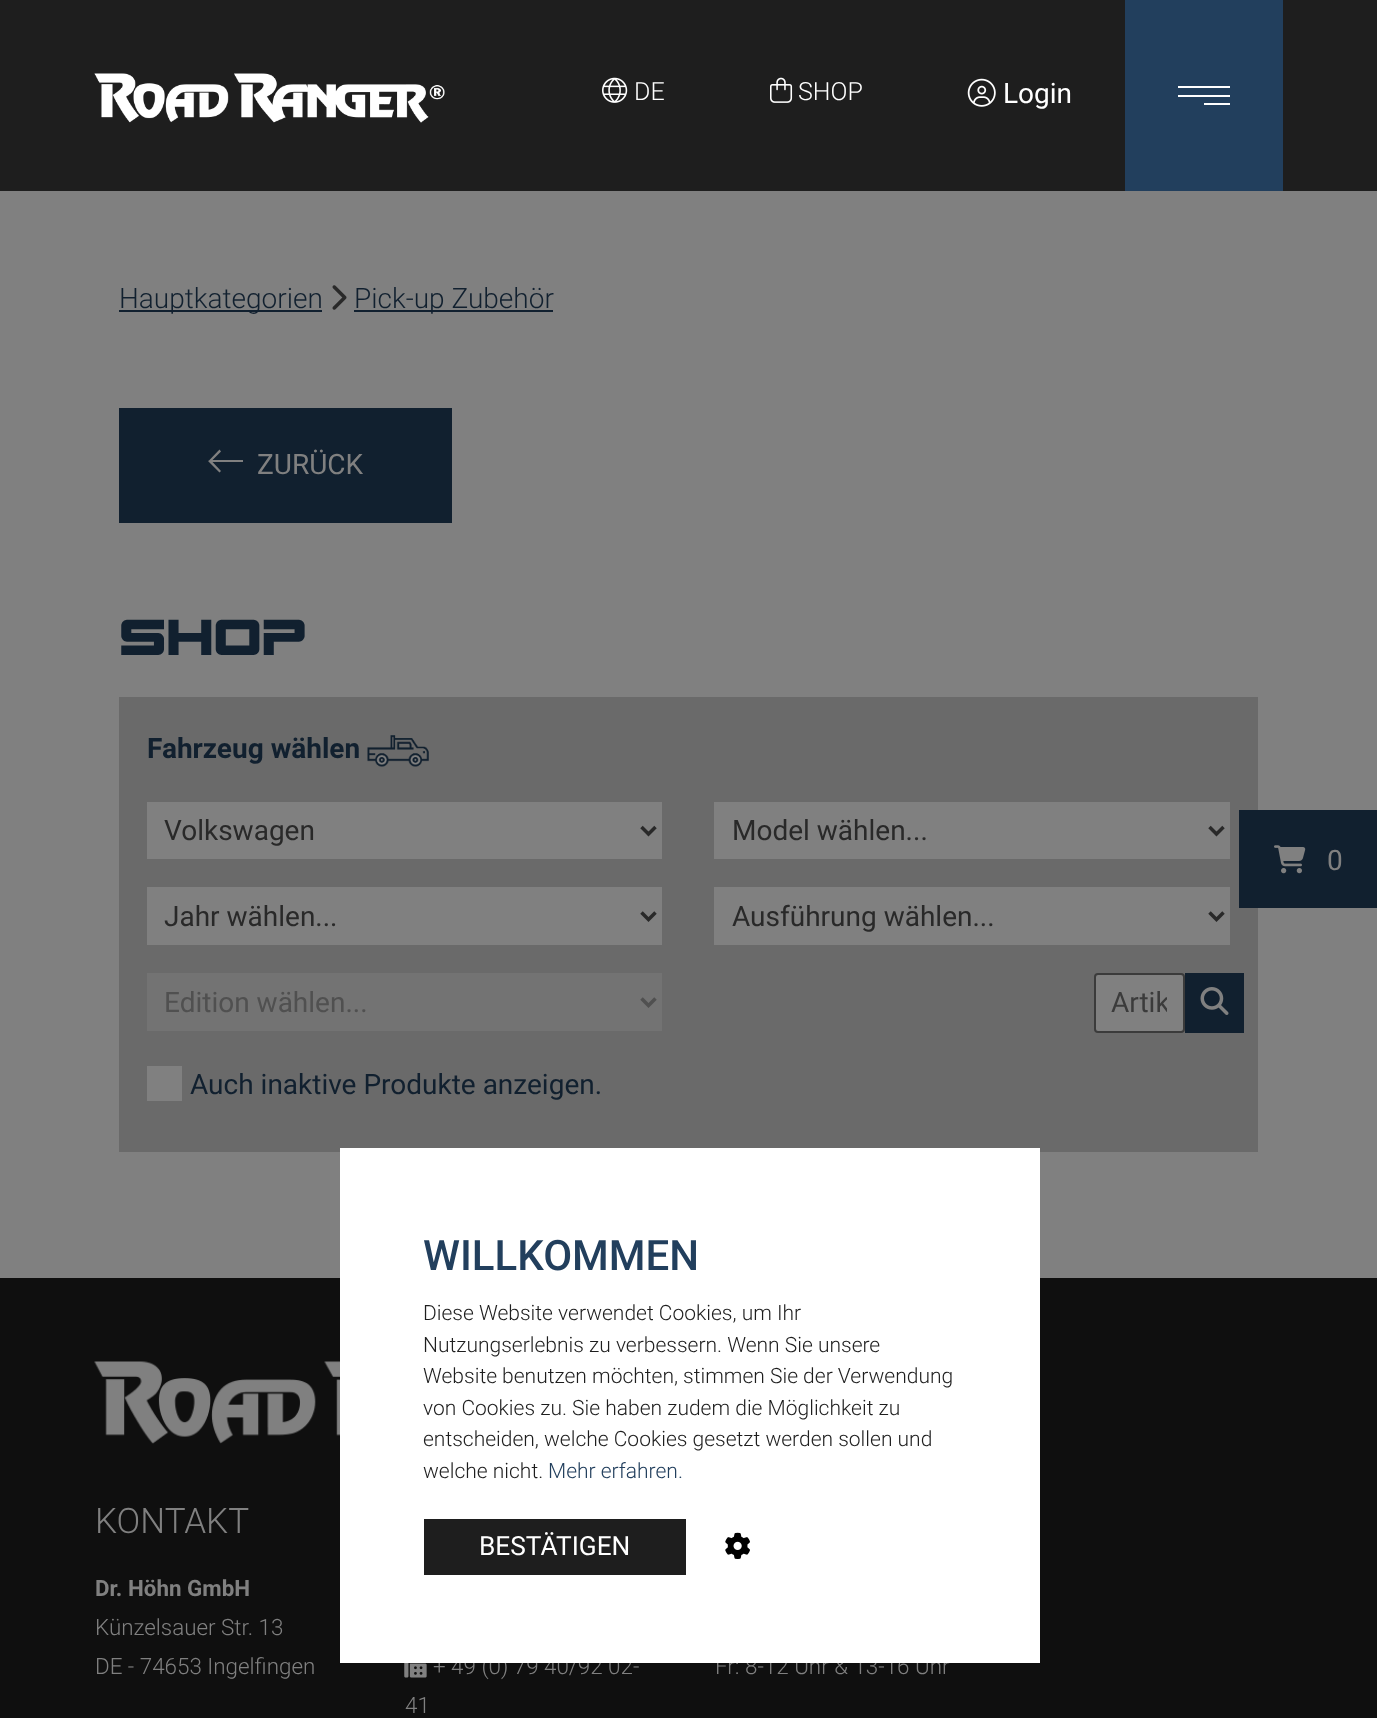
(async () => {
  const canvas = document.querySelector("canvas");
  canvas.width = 1377;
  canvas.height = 1718;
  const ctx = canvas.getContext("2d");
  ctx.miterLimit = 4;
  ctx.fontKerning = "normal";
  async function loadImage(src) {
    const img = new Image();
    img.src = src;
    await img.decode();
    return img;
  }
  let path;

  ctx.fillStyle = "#808080";
  ctx.fillRect(0, 0, 1377, 1718);
  ctx.fillStyle = "#1e1e1e";
  ctx.fillRect(0, 0, 1377, 191);
  ctx.drawImage(await loadImage("img/1.png"), 94, 73, 351, 50);
  ctx.drawImage(await loadImage("img/2.png"), 602, 77, 26, 26);
  ctx.drawImage(await loadImage("img/3.png"), 770, 77, 23, 26);
  ctx.drawImage(await loadImage("img/4.png"), 967, 78, 29, 29);
  for (const [x, y, w, h, color] of [
    [1125, 0, 158, 191, "#223f5d"],
    [1178, 86, 52, 2, "#ffffff"],
    [1178, 95, 52, 2, "#ffffff"],
    [1204, 103, 26, 2, "#ffffff"],
    [119, 310, 203, 2, "#11202f"],
  ]) {
    ctx.fillStyle = color;
    ctx.fillRect(x, y, w, h);
  }
  ctx.drawImage(await loadImage("img/6.png"), 332, 285, 15, 25);
  ctx.fillRect(354, 310, 199, 2);
  ctx.fillRect(119, 408, 333, 115);
  ctx.fillStyle = "#808080";
  path = new Path2D("M209 460.5L208 461L209 460.5L208 461L219.5 472.5L221 471L212.5 462H243V460H212.5L221 451.5L219.5 449.5Z");
  ctx.fill(path);
  ctx.fillStyle = "#6a6a6a";
  ctx.fillRect(119, 697, 1139, 455);
  ctx.drawImage(await loadImage("img/7.png"), 367, 735, 62, 32);
  ctx.fillStyle = "#808080";
  ctx.fillRect(147, 802, 515, 57);
  path = new Path2D("M641.5 827L648.5 834L655.5 827");
  ctx.strokeStyle = "#292929";
  ctx.lineWidth = 3.5;
  ctx.stroke(path);
  ctx.fillRect(714, 802, 516, 57);
  path = new Path2D("M1209.5 827L1216.5 834L1223.5 827");
  ctx.stroke(path);
  ctx.fillRect(147, 887, 515, 58);
  path = new Path2D("M641.5 912.5L648.5 919.5L655.5 912.5");
  ctx.stroke(path);
  ctx.fillRect(714, 887, 516, 58);
  path = new Path2D("M1209.5 912.5L1216.5 919.5L1223.5 912.5");
  ctx.stroke(path);
  ctx.fillStyle = "#737373";
  ctx.fillRect(147, 973, 515, 58);
  path = new Path2D("M641.5 998.5L648.5 1005.5L655.5 998.5");
  ctx.strokeStyle = "#505050";
  ctx.stroke(path);
  ctx.fillStyle = "#808080";
  ctx.beginPath();
  ctx.roundRect(1095, 974, 89, 58, 3);
  ctx.fill();
  ctx.strokeStyle = "#3b3b3b";
  ctx.lineWidth = 2;
  ctx.stroke();
  ctx.fillStyle = "#11202f";
  ctx.fillRect(1185, 973, 59, 60);
  ctx.drawImage(await loadImage("img/8.png"), 1200, 987, 29, 28);
  ctx.fillStyle = "#808080";
  ctx.fillRect(147, 1066, 35, 35);
  ctx.fillStyle = "#11202f";
  ctx.fillRect(1239, 810, 138, 98);
  ctx.drawImage(await loadImage("img/9.png"), 1274, 845, 32, 29);
  ctx.fillStyle = "#0f0f0f";
  ctx.fillRect(0, 1278, 1377, 440);
  ctx.drawImage(await loadImage("img/10.png"), 94, 1361, 246, 83);
  ctx.drawImage(await loadImage("img/11.png"), 404, 1663, 23, 15);
  ctx.font = "300 25px Roboto";
  ctx.fillStyle = "#ffffff";
  ctx.fillText("DE", 634, 100);
  ctx.fillText("SHOP", 798, 100);
  ctx.font = "28px Roboto";
  ctx.fillText("Login", 1003, 103);
  ctx.font = "300 28px Roboto";
  ctx.fillStyle = "#11202f";
  ctx.fillText("Hauptkategorien", 119, 308);
  ctx.fillText("Pick-up Zubehör", 354, 308);
  ctx.font = "28px Roboto";
  ctx.fillStyle = "#808080";
  ctx.fillText("ZURÜCK", 257, 474);
  ctx.font = "70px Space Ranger";
  ctx.fillStyle = "#11202f";
  ctx.fillText("shop", 119, 655);
  ctx.font = "bold 28px Roboto";
  ctx.fillText("Fahrzeug wählen", 147, 758);
  ctx.font = "28px Roboto";
  ctx.fillStyle = "#292929";
  for (const [text, x, y] of [
    ["Volkswagen", 164, 840],
    ["Model wählen...", 732, 840],
    ["Jahr wählen...", 164, 926],
    ["Ausführung wählen...", 732, 926],
  ]) {
    ctx.fillText(text, x, y);
  }
  ctx.fillStyle = "#505050";
  ctx.fillText("Edition wählen...", 164, 1012);
  ctx.save();
  ctx.beginPath();
  ctx.rect(1111, 985, 56, 34);
  ctx.clip();
  ctx.fillStyle = "#3b3b3b";
  ctx.fillText("Artik", 1111, 1012);
  ctx.restore();
  ctx.fillStyle = "#11202f";
  ctx.fillText("Auch inaktive Produkte anzeigen.", 190, 1094);
  ctx.fillStyle = "#808080";
  ctx.fillText("0", 1327, 870);
  ctx.font = "300 35px Roboto";
  ctx.fillText("KONTAKT", 95, 1533);
  ctx.font = "bold 22.4px Roboto";
  ctx.fillText("Dr. Höhn GmbH", 95, 1596);
  ctx.font = "300 22.4px Roboto";
  for (const [text, x, y] of [
    ["Künzelsauer Str. 13", 95, 1635],
    ["DE - 74653 Ingelfingen", 95, 1674],
    ["+ 49 (0) 79 40/92 02-", 433, 1674],
    ["41", 405, 1713],
    ["Fr: 8-12 Uhr & 13-16 Uhr", 715, 1674],
  ]) {
    ctx.fillText(text, x, y);
  }
  ctx.fillStyle = "#ffffff";
  ctx.fillRect(340, 1148, 700, 515);
  ctx.drawImage(await loadImage("img/5.png"), 725, 1532, 25, 27);
  ctx.fillStyle = "#1e1e1e";
  ctx.fillRect(424, 1519, 262, 56);
  ctx.font = "26.25px Roboto";
  ctx.fillStyle = "#ffffff";
  ctx.fillText("BESTÄTIGEN", 479, 1555);
  ctx.font = "300 21px Roboto";
  ctx.fillStyle = "#223f5d";
  ctx.fillText("Mehr erfahren.", 548, 1478);
  ctx.fillStyle = "#1e1e1e";
  for (const [text, x, y] of [
    ["welche nicht.", 423, 1478],
    ["entscheiden, welche Cookies gesetzt werden sollen und", 423, 1446],
    ["von Cookies zu. Sie haben zudem die Möglichkeit zu", 423, 1415],
    ["Website benutzen möchten, stimmen Sie der Verwendung", 423, 1383],
    ["Nutzungserlebnis zu verbessern. Wenn Sie unsere", 423, 1352],
    ["Diese Website verwendet Cookies, um Ihr", 423, 1320],
  ]) {
    ctx.fillText(text, x, y);
  }
  ctx.font = "500 42px Roboto";
  ctx.fillStyle = "#223f5d";
  ctx.fillText("WILLKOMMEN", 423, 1270);
})();
